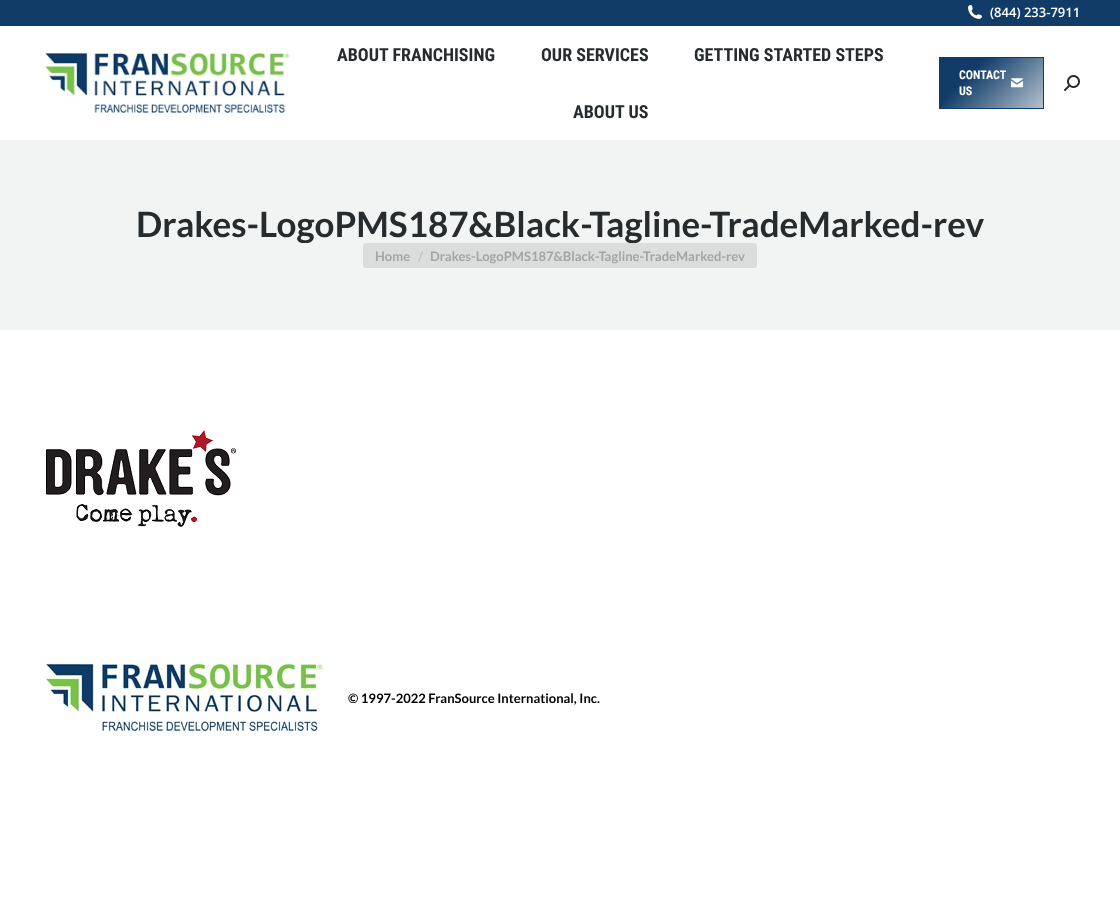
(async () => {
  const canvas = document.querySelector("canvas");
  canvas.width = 1120;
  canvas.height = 907;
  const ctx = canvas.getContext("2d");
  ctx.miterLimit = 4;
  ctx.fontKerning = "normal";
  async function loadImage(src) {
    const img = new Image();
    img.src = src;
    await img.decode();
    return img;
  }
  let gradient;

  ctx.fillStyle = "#ffffff";
  ctx.fillRect(0, 0, 1120, 907);
  ctx.fillStyle = "#103c67";
  ctx.fillRect(0, 0, 1120, 26);
  ctx.drawImage(await loadImage("img/1.png"), 968, 5, 14, 14);
  ctx.drawImage(await loadImage("img/2.png"), 40, 47, 254, 71);
  gradient = ctx.createLinearGradient(952, 44, 1031, 122);
  gradient.addColorStop(0.3, "#103c67");
  gradient.addColorStop(1, "#b7c4d1");
  ctx.fillStyle = gradient;
  ctx.fillRect(940, 58, 103, 50);
  ctx.strokeStyle = "#103c67";
  ctx.strokeRect(939.5, 57.5, 104, 51);
  ctx.drawImage(await loadImage("img/3.png"), 1011, 78, 12, 10);
  ctx.drawImage(await loadImage("img/4.png"), 1064, 75, 16, 16);
  ctx.fillStyle = "#f2f3f3";
  ctx.fillRect(0, 140, 1120, 190);
  ctx.fillStyle = "#dbdddd";
  ctx.beginPath();
  ctx.roundRect(363, 243, 394, 25, 3);
  ctx.fill();
  ctx.drawImage(await loadImage("img/5.png"), 46, 430, 190, 97);
  ctx.drawImage(await loadImage("img/6.png"), 40, 657, 288, 80);
  ctx.font = "600 13px Open Sans";
  ctx.fillStyle = "#ffffff";
  ctx.fillText("(844) 233-7911", 990, 17);
  ctx.font = "bold 18px Roboto Condensed";
  ctx.fillStyle = "#262b2e";
  for (const [text, x, y] of [
    ["ABOUT FRANCHISING", 337, 61],
    ["OUR SERVICES", 541, 61],
    ["GETTING STARTED STEPS", 694, 61],
    ["ABOUT US", 573, 118],
  ]) {
    ctx.fillText(text, x, y);
  }
  ctx.font = "bold 12px Roboto Condensed";
  ctx.fillStyle = "#ffffff";
  ctx.fillText("CONTACT", 959, 79);
  ctx.fillText("US", 959, 95);
  ctx.save();
  ctx.beginPath();
  ctx.rect(136, 203, 848, 40);
  ctx.clip();
  ctx.font = "bold 35px Lato";
  ctx.fillStyle = "#262b2e";
  ctx.fillText("Drakes-LogoPMS187&Black-Tagline-TradeMarked-rev", 136, 237);
  ctx.restore();
  ctx.font = "bold 13px Lato";
  ctx.fillStyle = "#a2a5a6";
  ctx.fillText("Home", 375, 261);
  ctx.fillStyle = "#bfc1c2";
  ctx.fillText("/", 418, 261);
  ctx.fillStyle = "#a2a5a6";
  ctx.fillText("Drakes-LogoPMS187&Black-Tagline-TradeMarked-rev", 430, 261);
  ctx.fillStyle = "#000000";
  ctx.fillText("© 1997-2022 FranSource International, Inc.", 348, 703);
})();
